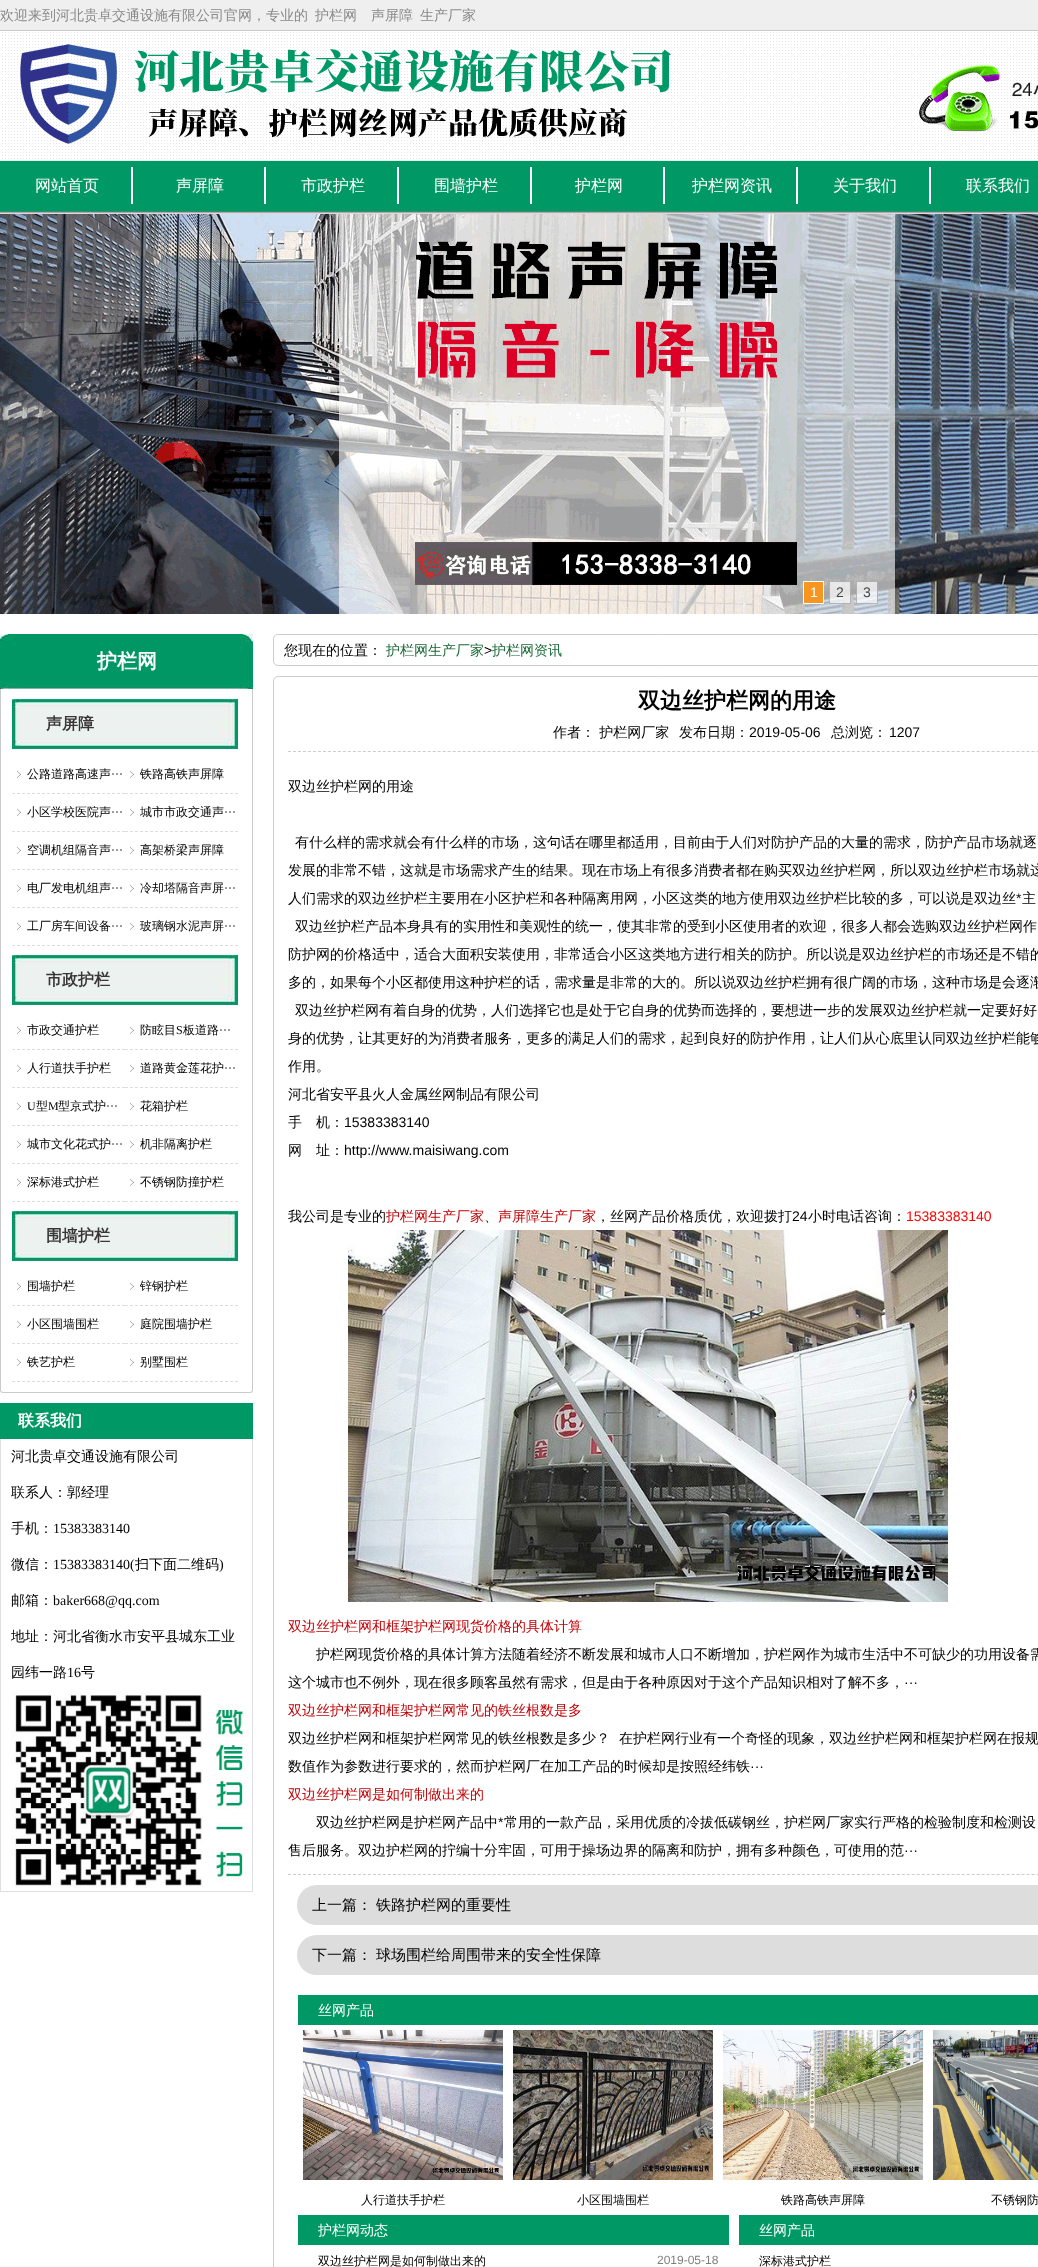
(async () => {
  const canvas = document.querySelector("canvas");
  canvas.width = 1038;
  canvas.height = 2267;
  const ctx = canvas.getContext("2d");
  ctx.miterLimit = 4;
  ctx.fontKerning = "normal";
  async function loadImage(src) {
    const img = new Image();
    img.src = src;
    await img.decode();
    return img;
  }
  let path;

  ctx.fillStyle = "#ffffff";
  ctx.fillRect(0, 0, 1038, 2267);
  ctx.drawImage(await loadImage("img/1.png"), 0, 0, 1038, 214);
  ctx.drawImage(await loadImage("img/2.png"), 20, 44, 1018, 100);
  for (const [x, y, w, h, color] of [
    [131, 167, 2, 37, "#ffffff"],
    [264, 167, 2, 37, "#ffffff"],
    [397, 167, 2, 37, "#ffffff"],
    [530, 167, 2, 37, "#ffffff"],
    [663, 167, 2, 37, "#ffffff"],
    [796, 167, 2, 37, "#ffffff"],
    [929, 167, 2, 37, "#ffffff"],
  ]) {
    ctx.fillStyle = color;
    ctx.fillRect(x, y, w, h);
  }
  ctx.drawImage(await loadImage("img/3.png"), 0, 214, 1038, 400);
  ctx.fillStyle = "#f79521";
  ctx.beginPath();
  ctx.rect(803.5, 581.5, 20, 22);
  ctx.fill();
  ctx.strokeStyle = "#ffffff";
  ctx.stroke();
  ctx.fillStyle = "rgba(255, 255, 255, 0.7)";
  ctx.fillRect(829, 581, 22, 23);
  ctx.strokeStyle = "rgba(153, 153, 153, 0.7)";
  ctx.strokeRect(829.5, 581.5, 21, 22);
  ctx.fillRect(856, 581, 22, 23);
  ctx.strokeRect(856.5, 581.5, 21, 22);
  ctx.drawImage(await loadImage("img/4.png"), 0, 634, 253, 55);
  ctx.fillStyle = "#c9caca";
  path = new Path2D("M0 689H253V1390C253 1392 252 1393 250 1393H3C1 1393 0 1392 0 1390ZM1 689H252V1390C252 1391 251 1392 250 1392H3C2 1392 1 1391 1 1390Z");
  ctx.fill(path, "evenodd");
  ctx.drawImage(await loadImage("img/5.png"), 12, 699, 226, 50);
  ctx.drawImage(await loadImage("img/6.png"), 17, 770, 4, 8);
  path = new Path2D("M12 793.5H125");
  ctx.strokeStyle = "#dddddd";
  ctx.setLineDash([3, 2]);
  ctx.stroke(path);
  ctx.drawImage(await loadImage("img/6.png"), 130, 770, 4, 8);
  path = new Path2D("M125 793.5H238");
  ctx.stroke(path);
  ctx.drawImage(await loadImage("img/6.png"), 17, 808, 4, 8);
  path = new Path2D("M12 831.5H125");
  ctx.stroke(path);
  ctx.drawImage(await loadImage("img/6.png"), 130, 808, 4, 8);
  path = new Path2D("M125 831.5H238");
  ctx.stroke(path);
  ctx.drawImage(await loadImage("img/6.png"), 17, 846, 4, 8);
  path = new Path2D("M12 869.5H125");
  ctx.stroke(path);
  ctx.drawImage(await loadImage("img/6.png"), 130, 846, 4, 8);
  path = new Path2D("M125 869.5H238");
  ctx.stroke(path);
  ctx.drawImage(await loadImage("img/6.png"), 17, 884, 4, 8);
  path = new Path2D("M12 907.5H125");
  ctx.stroke(path);
  ctx.drawImage(await loadImage("img/6.png"), 130, 884, 4, 8);
  path = new Path2D("M125 907.5H238");
  ctx.stroke(path);
  ctx.drawImage(await loadImage("img/6.png"), 17, 922, 4, 8);
  path = new Path2D("M12 945.5H125");
  ctx.stroke(path);
  ctx.drawImage(await loadImage("img/6.png"), 130, 922, 4, 8);
  path = new Path2D("M125 945.5H238");
  ctx.stroke(path);
  ctx.drawImage(await loadImage("img/5.png"), 12, 955, 226, 50);
  ctx.drawImage(await loadImage("img/6.png"), 17, 1026, 4, 8);
  path = new Path2D("M12 1049.5H125");
  ctx.stroke(path);
  ctx.drawImage(await loadImage("img/6.png"), 130, 1026, 4, 8);
  path = new Path2D("M125 1049.5H238");
  ctx.stroke(path);
  ctx.drawImage(await loadImage("img/6.png"), 17, 1064, 4, 8);
  path = new Path2D("M12 1087.5H125");
  ctx.stroke(path);
  ctx.drawImage(await loadImage("img/6.png"), 130, 1064, 4, 8);
  path = new Path2D("M125 1087.5H238");
  ctx.stroke(path);
  ctx.drawImage(await loadImage("img/6.png"), 17, 1102, 4, 8);
  path = new Path2D("M12 1125.5H125");
  ctx.stroke(path);
  ctx.drawImage(await loadImage("img/6.png"), 130, 1102, 4, 8);
  path = new Path2D("M125 1125.5H238");
  ctx.stroke(path);
  ctx.drawImage(await loadImage("img/6.png"), 17, 1140, 4, 8);
  path = new Path2D("M12 1163.5H125");
  ctx.stroke(path);
  ctx.drawImage(await loadImage("img/6.png"), 130, 1140, 4, 8);
  path = new Path2D("M125 1163.5H238");
  ctx.stroke(path);
  ctx.drawImage(await loadImage("img/6.png"), 17, 1178, 4, 8);
  path = new Path2D("M12 1201.5H125");
  ctx.stroke(path);
  ctx.drawImage(await loadImage("img/6.png"), 130, 1178, 4, 8);
  path = new Path2D("M125 1201.5H238");
  ctx.stroke(path);
  ctx.drawImage(await loadImage("img/5.png"), 12, 1211, 226, 50);
  ctx.drawImage(await loadImage("img/6.png"), 17, 1282, 4, 8);
  path = new Path2D("M12 1305.5H125");
  ctx.stroke(path);
  ctx.drawImage(await loadImage("img/6.png"), 130, 1282, 4, 8);
  path = new Path2D("M125 1305.5H238");
  ctx.stroke(path);
  ctx.drawImage(await loadImage("img/6.png"), 17, 1320, 4, 8);
  path = new Path2D("M12 1343.5H125");
  ctx.stroke(path);
  ctx.drawImage(await loadImage("img/6.png"), 130, 1320, 4, 8);
  path = new Path2D("M125 1343.5H238");
  ctx.stroke(path);
  ctx.drawImage(await loadImage("img/6.png"), 17, 1358, 4, 8);
  path = new Path2D("M12 1381.5H125");
  ctx.stroke(path);
  ctx.drawImage(await loadImage("img/6.png"), 130, 1358, 4, 8);
  path = new Path2D("M125 1381.5H238");
  ctx.stroke(path);
  for (const [x, y, w, h, color] of [
    [0, 1403, 253, 36, "#009865"],
    [252, 1439, 1, 453, "#dfdfdf"],
    [0, 1891, 253, 1, "#dfdfdf"],
    [0, 1439, 1, 453, "#dfdfdf"],
  ]) {
    ctx.fillStyle = color;
    ctx.fillRect(x, y, w, h);
  }
  ctx.drawImage(await loadImage("img/7.png"), 11, 1691, 237, 197);
  ctx.beginPath();
  ctx.roundRect(273.5, 634.5, 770, 31, 4.5);
  ctx.strokeStyle = "#cccccc";
  ctx.setLineDash([]);
  ctx.stroke();
  ctx.beginPath();
  ctx.roundRect(273.5, 676.5, 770, 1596, 4.5);
  ctx.stroke();
  path = new Path2D("M288 751.5H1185");
  ctx.setLineDash([3, 1.99]);
  ctx.stroke(path);
  ctx.drawImage(await loadImage("img/8.png"), 348, 1230, 600, 372);
  path = new Path2D("M288 1874.5H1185");
  ctx.stroke(path);
  ctx.fillStyle = "#dddddd";
  ctx.beginPath();
  ctx.roundRect(297, 1885, 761, 40, 20);
  ctx.fill();
  ctx.beginPath();
  ctx.roundRect(297, 1935, 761, 40, 20);
  ctx.fill();
  ctx.fillStyle = "#009865";
  ctx.fillRect(298, 1995, 740, 30);
  ctx.drawImage(await loadImage("img/9.png"), 303, 2030, 200, 150);
  ctx.drawImage(await loadImage("img/10.png"), 513, 2030, 200, 150);
  ctx.drawImage(await loadImage("img/11.png"), 723, 2030, 200, 150);
  ctx.drawImage(await loadImage("img/12.png"), 933, 2030, 105, 150);
  ctx.fillRect(298, 2215, 431, 30);
  ctx.fillRect(739, 2215, 299, 30);
  ctx.font = "500 14px WenQuanYi Zen Hei";
  ctx.fillStyle = "#898989";
  for (const [text, x, y] of [
    ["欢迎来到河北贵卓交通设施有限公司官网，专业的", 0, 20],
    ["护栏网", 315, 20],
    ["声屏障", 371, 20],
    ["生产厂家", 420, 20],
  ]) {
    ctx.fillText(text, x, y);
  }
  ctx.font = "500 16px WenQuanYi Zen Hei";
  ctx.fillStyle = "#ffffff";
  for (const [text, x, y] of [
    ["网站首页", 35, 191],
    ["声屏障", 176, 191],
    ["市政护栏", 301, 191],
    ["围墙护栏", 434, 191],
    ["护栏网", 575, 191],
    ["护栏网资讯", 692, 191],
    ["关于我们", 833, 191],
    ["联系我们", 966, 191],
  ]) {
    ctx.fillText(text, x, y);
  }
  ctx.font = "14px Liberation Sans";
  ctx.fillText("1", 810, 597);
  ctx.fillStyle = "#454545";
  ctx.fillText("2", 836, 597);
  ctx.fillText("3", 863, 597);
  ctx.font = "bold 20px WenQuanYi Zen Hei";
  ctx.fillStyle = "#ffffff";
  ctx.fillText("护栏网", 97, 668);
  ctx.font = "bold 16px WenQuanYi Zen Hei";
  ctx.fillStyle = "#383636";
  ctx.fillText("声屏障", 46, 729);
  ctx.font = "500 12px WenQuanYi Zen Hei";
  ctx.fillStyle = "#000000";
  ctx.fillText("公路道路高速声", 27, 778);
  ctx.font = "12px Liberation Serif";
  ctx.fillText("···", 111, 778);
  ctx.font = "500 12px WenQuanYi Zen Hei";
  ctx.fillText("铁路高铁声屏障", 140, 778);
  ctx.fillText("小区学校医院声", 27, 816);
  ctx.font = "12px Liberation Serif";
  ctx.fillText("···", 111, 816);
  ctx.font = "500 12px WenQuanYi Zen Hei";
  ctx.fillText("城市市政交通声", 140, 816);
  ctx.font = "12px Liberation Serif";
  ctx.fillText("···", 224, 816);
  ctx.font = "500 12px WenQuanYi Zen Hei";
  ctx.fillText("空调机组隔音声", 27, 854);
  ctx.font = "12px Liberation Serif";
  ctx.fillText("···", 111, 854);
  ctx.font = "500 12px WenQuanYi Zen Hei";
  ctx.fillText("高架桥梁声屏障", 140, 854);
  ctx.fillText("电厂发电机组声", 27, 892);
  ctx.font = "12px Liberation Serif";
  ctx.fillText("···", 111, 892);
  ctx.font = "500 12px WenQuanYi Zen Hei";
  ctx.fillText("冷却塔隔音声屏", 140, 892);
  ctx.font = "12px Liberation Serif";
  ctx.fillText("···", 224, 892);
  ctx.font = "500 12px WenQuanYi Zen Hei";
  ctx.fillText("工厂房车间设备", 27, 930);
  ctx.font = "12px Liberation Serif";
  ctx.fillText("···", 111, 930);
  ctx.font = "500 12px WenQuanYi Zen Hei";
  ctx.fillText("玻璃钢水泥声屏", 140, 930);
  ctx.font = "12px Liberation Serif";
  ctx.fillText("···", 224, 930);
  ctx.font = "bold 16px WenQuanYi Zen Hei";
  ctx.fillStyle = "#383636";
  ctx.fillText("市政护栏", 46, 985);
  ctx.font = "500 12px WenQuanYi Zen Hei";
  ctx.fillStyle = "#000000";
  ctx.fillText("市政交通护栏", 27, 1034);
  ctx.fillText("防眩目", 140, 1034);
  ctx.font = "12px Liberation Serif";
  ctx.fillText("S", 176, 1034);
  ctx.font = "500 12px WenQuanYi Zen Hei";
  ctx.fillText("板道路", 183, 1034);
  ctx.font = "12px Liberation Serif";
  ctx.fillText("···", 219, 1034);
  ctx.font = "500 12px WenQuanYi Zen Hei";
  ctx.fillText("人行道扶手护栏", 27, 1072);
  ctx.fillText("道路黄金莲花护", 140, 1072);
  ctx.font = "12px Liberation Serif";
  ctx.fillText("···", 224, 1072);
  ctx.fillText("U", 27, 1110);
  ctx.font = "500 12px WenQuanYi Zen Hei";
  ctx.fillText("型", 36, 1110);
  ctx.font = "12px Liberation Serif";
  ctx.fillText("M", 48, 1110);
  ctx.font = "500 12px WenQuanYi Zen Hei";
  ctx.fillText("型京式护", 58, 1110);
  ctx.font = "12px Liberation Serif";
  ctx.fillText("···", 106, 1110);
  ctx.font = "500 12px WenQuanYi Zen Hei";
  ctx.fillText("花箱护栏", 140, 1110);
  ctx.fillText("城市文化花式护", 27, 1148);
  ctx.font = "12px Liberation Serif";
  ctx.fillText("···", 111, 1148);
  ctx.font = "500 12px WenQuanYi Zen Hei";
  for (const [text, x, y] of [
    ["机非隔离护栏", 140, 1148],
    ["深标港式护栏", 27, 1186],
    ["不锈钢防撞护栏", 140, 1186],
  ]) {
    ctx.fillText(text, x, y);
  }
  ctx.font = "bold 16px WenQuanYi Zen Hei";
  ctx.fillStyle = "#383636";
  ctx.fillText("围墙护栏", 46, 1241);
  ctx.font = "500 12px WenQuanYi Zen Hei";
  ctx.fillStyle = "#000000";
  for (const [text, x, y] of [
    ["围墙护栏", 27, 1290],
    ["锌钢护栏", 140, 1290],
    ["小区围墙围栏", 27, 1328],
    ["庭院围墙护栏", 140, 1328],
    ["铁艺护栏", 27, 1366],
    ["别墅围栏", 140, 1366],
  ]) {
    ctx.fillText(text, x, y);
  }
  ctx.font = "bold 16px WenQuanYi Zen Hei";
  ctx.fillStyle = "#ffffff";
  ctx.fillText("联系我们", 18, 1426);
  ctx.font = "500 14px WenQuanYi Zen Hei";
  ctx.fillStyle = "#000000";
  for (const [text, x, y] of [
    ["河北贵卓交通设施有限公司", 11, 1461],
    ["联系人：郭经理", 11, 1497],
    ["手机：", 11, 1533],
  ]) {
    ctx.fillText(text, x, y);
  }
  ctx.font = "14px Liberation Serif";
  ctx.fillText("15383383140", 53, 1533);
  ctx.font = "500 14px WenQuanYi Zen Hei";
  ctx.fillText("微信：", 11, 1569);
  ctx.font = "14px Liberation Serif";
  ctx.fillText("15383383140(", 53, 1569);
  ctx.font = "500 14px WenQuanYi Zen Hei";
  ctx.fillText("扫下面二维码", 135, 1569);
  ctx.font = "14px Liberation Serif";
  ctx.fillText(")", 219, 1569);
  ctx.font = "500 14px WenQuanYi Zen Hei";
  ctx.fillText("邮箱：", 11, 1605);
  ctx.font = "14px Liberation Serif";
  ctx.fillText("baker668@qq.com", 53, 1605);
  ctx.font = "500 14px WenQuanYi Zen Hei";
  ctx.fillText("地址：河北省衡水市安平县城东工业", 11, 1641);
  ctx.fillText("园纬一路", 11, 1677);
  ctx.font = "14px Liberation Serif";
  ctx.fillText("16", 67, 1677);
  ctx.font = "500 14px WenQuanYi Zen Hei";
  ctx.fillText("号", 81, 1677);
  ctx.fillText("您现在的位置：", 284, 655);
  ctx.fillStyle = "#186836";
  ctx.fillText("护栏网生产厂家", 386, 655);
  ctx.font = "14px Liberation Sans";
  ctx.fillStyle = "#000000";
  ctx.fillText(">", 484, 655);
  ctx.font = "500 14px WenQuanYi Zen Hei";
  ctx.fillStyle = "#186836";
  ctx.fillText("护栏网资讯", 492, 655);
  ctx.font = "bold 22px WenQuanYi Zen Hei";
  ctx.fillStyle = "#000000";
  ctx.fillText("双边丝护栏网的用途", 638, 708);
  ctx.font = "500 14px WenQuanYi Zen Hei";
  ctx.fillText("作者： 护栏网厂家", 553, 737);
  ctx.fillText("发布日期：", 679, 737);
  ctx.font = "14px Liberation Sans";
  ctx.fillText("2019-05-06", 749, 737);
  ctx.font = "500 14px WenQuanYi Zen Hei";
  ctx.fillText("总浏览：", 831, 737);
  ctx.font = "14px Liberation Sans";
  ctx.fillText("1207", 889, 737);
  ctx.font = "500 14px WenQuanYi Zen Hei";
  for (const [text, x, y] of [
    ["双边丝护栏网的用途", 288, 791],
    ["有什么样的需求就会有什么样的市场，这句话在哪里都适用，目前由于人们对防护产品的大量的需求，防护产品市场就逐", 295, 847],
    ["发展的非常不错，这就是市场需求产生的结果。现在市场上有很多消费者都在购买双边丝护栏网，所以双边丝护栏市场就这", 288, 875],
    ["人们需求的双边丝护栏主要用在小区护栏和各种隔离用网，小区这类的地方使用双边丝护栏比较的多，可以说是双边丝", 288, 903],
  ]) {
    ctx.fillText(text, x, y);
  }
  ctx.font = "14px Liberation Sans";
  ctx.fillText("*", 1016, 903);
  ctx.font = "500 14px WenQuanYi Zen Hei";
  for (const [text, x, y] of [
    ["主", 1022, 903],
    ["双边丝护栏产品本身具有的实用性和美观性的统一，使其非常的受到小区使用者的欢迎，很多人都会选购双边丝护栏网作", 295, 931],
    ["防护网的价格适中，适合大面积安装使用，非常适合小区这类地方进行相关的防护。所以说是双边丝护栏的市场还是不错的", 288, 959],
    ["多的，如果每个小区都使用这种护栏的话，需求量是非常的大的。所以说双边丝护栏拥有很广阔的市场，这种市场是会逐渐", 288, 987],
    ["双边丝护栏网有着自身的优势，人们选择它也是处于它自身的优势而选择的，要想进一步的发展双边丝护栏就一定要好好", 295, 1015],
    ["身的优势，让其更好的为消费者服务，更多的满足人们的需求，起到良好的防护作用，让人们从心底里认同双边丝护栏能够", 288, 1043],
    ["作用。", 288, 1071],
    ["河北省安平县火人金属丝网制品有限公司", 288, 1099],
    ["手　机：", 288, 1127],
  ]) {
    ctx.fillText(text, x, y);
  }
  ctx.font = "14px Liberation Sans";
  ctx.fillText("15383383140", 344, 1127);
  ctx.font = "500 14px WenQuanYi Zen Hei";
  ctx.fillText("网　址：", 288, 1155);
  ctx.font = "14px Liberation Sans";
  ctx.fillText("http://www.maisiwang.com", 344, 1155);
  ctx.font = "500 14px WenQuanYi Zen Hei";
  ctx.fillText("我公司是专业的", 288, 1221);
  ctx.fillStyle = "#c10005";
  ctx.fillText("护栏网生产厂家", 386, 1221);
  ctx.fillStyle = "#000000";
  ctx.fillText("、", 484, 1221);
  ctx.fillStyle = "#c10005";
  ctx.fillText("声屏障生产厂家", 498, 1221);
  ctx.fillStyle = "#000000";
  ctx.fillText("，丝网产品价格质优，欢迎拨打", 596, 1221);
  ctx.font = "14px Liberation Sans";
  ctx.fillText("24", 792, 1221);
  ctx.font = "500 14px WenQuanYi Zen Hei";
  ctx.fillText("小时电话咨询：", 808, 1221);
  ctx.font = "14px Liberation Sans";
  ctx.fillStyle = "#ff0000";
  ctx.fillText("15383383140", 906, 1221);
  ctx.font = "500 14px WenQuanYi Zen Hei";
  ctx.fillStyle = "#c10005";
  ctx.fillText("双边丝护栏网和框架护栏网现货价格的具体计算", 288, 1631);
  ctx.fillStyle = "#000000";
  ctx.fillText("护栏网现货价格的具体计算方法随着经济不断发展和城市人口不断增加，护栏网作为城市生活中不可缺少的功用设备需", 316, 1659);
  ctx.fillText("这个城市也不例外，现在很多顾客虽然有需求，但是由于各种原因对于这个产品知识相对了解不多，", 288, 1687);
  ctx.font = "14px Liberation Sans";
  ctx.fillText("···", 904, 1687);
  ctx.font = "500 14px WenQuanYi Zen Hei";
  ctx.fillStyle = "#c10005";
  ctx.fillText("双边丝护栏网和框架护栏网常见的铁丝根数是多", 288, 1715);
  ctx.fillStyle = "#000000";
  for (const [text, x, y] of [
    ["双边丝护栏网和框架护栏网常见的铁丝根数是多少？", 288, 1743],
    ["在护栏网行业有一个奇怪的现象，双边丝护栏网和框架护栏网在报规", 619, 1743],
    ["数值作为参数进行要求的，然而护栏网厂在加工产品的时候却是按照经纬铁", 288, 1771],
  ]) {
    ctx.fillText(text, x, y);
  }
  ctx.font = "14px Liberation Sans";
  ctx.fillText("···", 750, 1771);
  ctx.font = "500 14px WenQuanYi Zen Hei";
  ctx.fillStyle = "#c10005";
  ctx.fillText("双边丝护栏网是如何制做出来的", 288, 1799);
  ctx.fillStyle = "#000000";
  ctx.fillText("双边丝护栏网是护栏网产品中", 316, 1827);
  ctx.font = "14px Liberation Sans";
  ctx.fillText("*", 498, 1827);
  ctx.font = "500 14px WenQuanYi Zen Hei";
  ctx.fillText("常用的一款产品，采用优质的冷拔低碳钢丝，护栏网厂家实行严格的检验制度和检测设", 504, 1827);
  ctx.fillText("售后服务。双边护栏网的拧编十分牢固，可用于操场边界的隔离和防护，拥有多种颜色，可使用的范", 288, 1855);
  ctx.font = "14px Liberation Sans";
  ctx.fillText("···", 904, 1855);
  ctx.font = "500 15px WenQuanYi Zen Hei";
  for (const [text, x, y] of [
    ["上一篇：", 312, 1910],
    ["铁路护栏网的重要性", 376, 1910],
    ["下一篇：", 312, 1960],
    ["球场围栏给周围带来的安全性保障", 376, 1960],
  ]) {
    ctx.fillText(text, x, y);
  }
  ctx.font = "500 14px WenQuanYi Zen Hei";
  ctx.fillStyle = "#ffffff";
  ctx.fillText("丝网产品", 318, 2015);
  ctx.font = "500 12px WenQuanYi Zen Hei";
  ctx.fillStyle = "#000000";
  for (const [text, x, y] of [
    ["人行道扶手护栏", 361, 2204],
    ["小区围墙围栏", 577, 2204],
    ["铁路高铁声屏障", 781, 2204],
    ["不锈钢防", 991, 2204],
  ]) {
    ctx.fillText(text, x, y);
  }
  ctx.font = "500 14px WenQuanYi Zen Hei";
  ctx.fillStyle = "#ffffff";
  ctx.fillText("护栏网动态", 318, 2235);
  ctx.font = "500 12px WenQuanYi Zen Hei";
  ctx.fillStyle = "#000000";
  ctx.fillText("双边丝护栏网是如何制做出来的", 318, 2265);
  ctx.font = "12px Liberation Sans";
  ctx.fillStyle = "#7e7e7e";
  ctx.fillText("2019-05-18", 657, 2264);
  ctx.font = "500 14px WenQuanYi Zen Hei";
  ctx.fillStyle = "#ffffff";
  ctx.fillText("丝网产品", 759, 2235);
  ctx.font = "500 12px WenQuanYi Zen Hei";
  ctx.fillStyle = "#000000";
  ctx.fillText("深标港式护栏", 759, 2265);
})();
